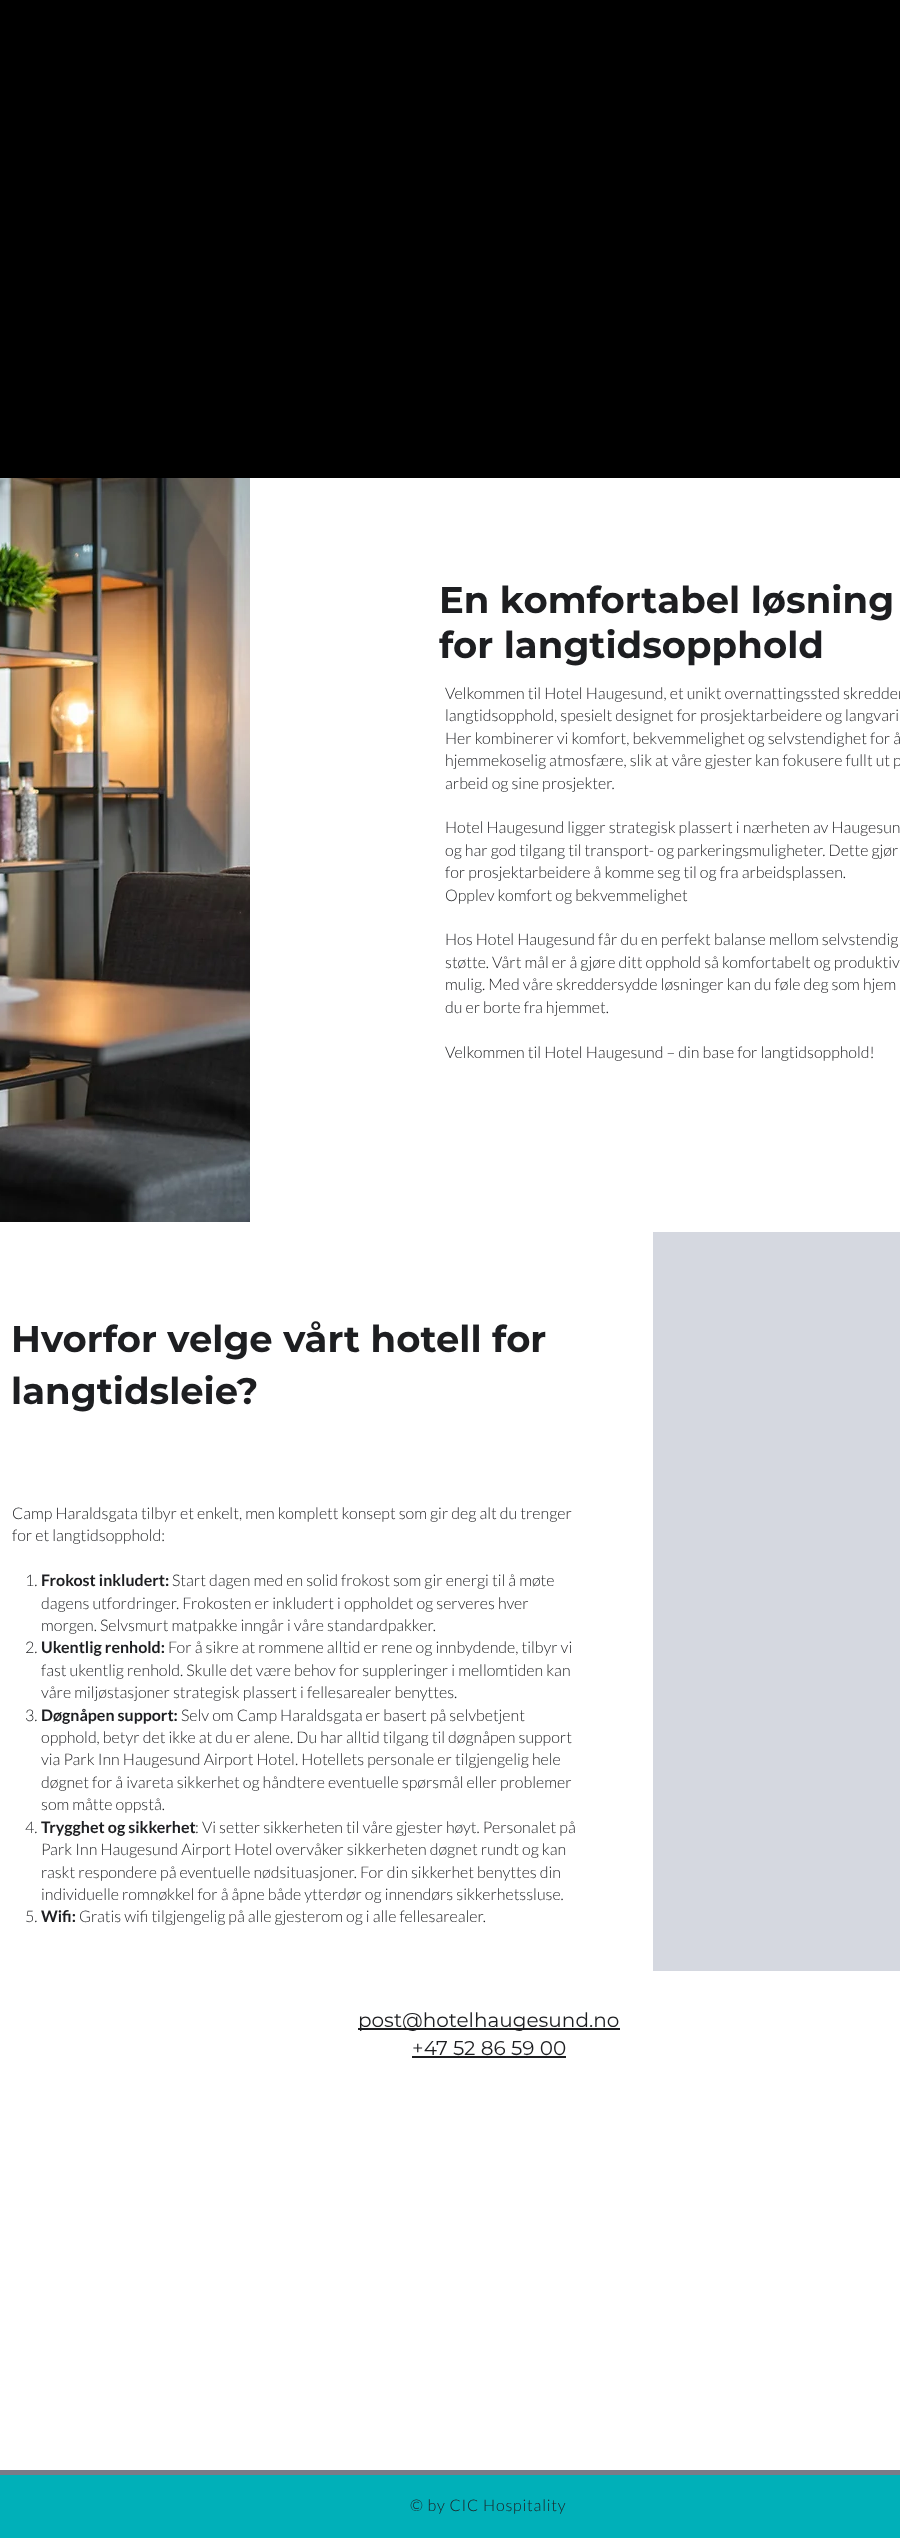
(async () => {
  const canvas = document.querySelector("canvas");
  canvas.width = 900;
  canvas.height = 2538;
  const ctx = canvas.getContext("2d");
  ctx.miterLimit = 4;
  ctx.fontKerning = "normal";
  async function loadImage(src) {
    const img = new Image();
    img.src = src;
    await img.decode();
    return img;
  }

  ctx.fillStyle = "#ffffff";
  ctx.fillRect(0, 0, 900, 2538);
  ctx.fillStyle = "#000000";
  ctx.fillRect(0, 0, 900, 478);
  ctx.drawImage(await loadImage("img/1.png"), 0, 478, 250, 744);
  for (const [x, y, w, h, color] of [
    [653, 1232, 247, 739, "#d5d8e0"],
    [358, 2028, 262, 2, "#1d1e21"],
    [412, 2056, 154, 2, "#1d1e21"],
    [0, 2475, 900, 63, "#00b0b9"],
    [0, 2470, 900, 5, "#787c88"],
  ]) {
    ctx.fillStyle = color;
    ctx.fillRect(x, y, w, h);
  }
  ctx.font = "bold 37px Montserrat";
  ctx.fillStyle = "#1d1e21";
  ctx.fillText("En komfortabel løsning", 439, 613);
  ctx.fillText("for langtidsopphold", 439, 658);
  ctx.font = "300 16px Lato";
  for (const [text, x, y] of [
    ["Velkommen til Hotel Haugesund, et unikt overnattingssted skredder", 445, 699],
    ["langtidsopphold, spesielt designet for prosjektarbeidere og langvari", 445, 721],
    ["Her kombinerer vi komfort, bekvemmelighet og selvstendighet for å", 445, 744],
    ["hjemmekoselig atmosfære, slik at våre gjester kan fokusere fullt ut p", 445, 766],
    ["arbeid og sine prosjekter.", 445, 789],
    ["Hotel Haugesund ligger strategisk plassert i nærheten av Haugesun", 445, 833],
    ["og har god tilgang til transport- og parkeringsmuligheter. Dette gjør", 445, 856],
    ["for prosjektarbeidere å komme seg til og fra arbeidsplassen.", 445, 878],
    ["Opplev komfort og bekvemmelighet", 445, 901],
    ["Hos Hotel Haugesund får du en perfekt balanse mellom selvstendig", 445, 945],
    ["støtte. Vårt mål er å gjøre ditt opphold så komfortabelt og produktiv", 445, 968],
    ["mulig. Med våre skreddersydde løsninger kan du føle deg som hjem", 445, 990],
    ["du er borte fra hjemmet.", 445, 1013],
    ["Velkommen til Hotel Haugesund – din base for langtidsopphold!", 445, 1058],
  ]) {
    ctx.fillText(text, x, y);
  }
  ctx.font = "bold 37px Montserrat";
  ctx.fillText("Hvorfor velge vårt hotell for", 11, 1352);
  ctx.fillText("langtidsleie?", 11, 1404);
  ctx.font = "300 16px Lato";
  for (const [text, x, y] of [
    ["Camp Haraldsgata tilbyr et enkelt, men komplett konsept som gir deg alt du trenger", 12, 1519],
    ["for et langtidsopphold:", 12, 1541],
    ["1.", 25, 1586],
  ]) {
    ctx.fillText(text, x, y);
  }
  ctx.font = "bold 16px Lato";
  ctx.fillText("Frokost inkludert:", 41, 1586);
  ctx.font = "300 16px Lato";
  for (const [text, x, y] of [
    ["Start dagen med en solid frokost som gir energi til å møte", 172, 1586],
    ["dagens utfordringer. Frokosten er inkludert i oppholdet og serveres hver", 41, 1609],
    ["morgen. Selvsmurt matpakke inngår i våre standardpakker.", 41, 1631],
    ["2.", 25, 1653],
  ]) {
    ctx.fillText(text, x, y);
  }
  ctx.font = "bold 16px Lato";
  ctx.fillText("Ukentlig renhold:", 41, 1653);
  ctx.font = "300 16px Lato";
  for (const [text, x, y] of [
    ["For å sikre at rommene alltid er rene og innbydende, tilbyr vi", 168, 1653],
    ["fast ukentlig renhold. Skulle det være behov for suppleringer i mellomtiden kan", 41, 1676],
    ["våre miljøstasjoner strategisk plassert i fellesarealer benyttes.", 41, 1698],
    ["3.", 25, 1721],
  ]) {
    ctx.fillText(text, x, y);
  }
  ctx.font = "bold 16px Lato";
  ctx.fillText("Døgnåpen support:", 41, 1721);
  ctx.font = "300 16px Lato";
  for (const [text, x, y] of [
    ["Selv om Camp Haraldsgata er basert på selvbetjent", 181, 1721],
    ["opphold, betyr det ikke at du er alene. Du har alltid tilgang til døgnåpen support", 41, 1743],
    ["via Park Inn Haugesund Airport Hotel. Hotellets personale er tilgjengelig hele", 41, 1765],
    ["døgnet for å ivareta sikkerhet og håndtere eventuelle spørsmål eller problemer", 41, 1788],
    ["som måtte oppstå.", 41, 1810],
    ["4.", 25, 1833],
  ]) {
    ctx.fillText(text, x, y);
  }
  ctx.font = "bold 16px Lato";
  ctx.fillText("Trygghet og sikkerhet", 41, 1833);
  ctx.font = "300 16px Lato";
  for (const [text, x, y] of [
    [": Vi setter sikkerheten til våre gjester høyt. Personalet på", 195, 1833],
    ["Park Inn Haugesund Airport Hotel overvåker sikkerheten døgnet rundt og kan", 41, 1855],
    ["raskt respondere på eventuelle nødsituasjoner. For din sikkerhet benyttes din", 41, 1878],
    ["individuelle romnøkkel for å åpne både ytterdør og innendørs sikkerhetssluse.", 41, 1900],
    ["5.", 25, 1922],
  ]) {
    ctx.fillText(text, x, y);
  }
  ctx.font = "bold 16px Lato";
  ctx.fillText("Wifi:", 41, 1922);
  ctx.font = "300 16px Lato";
  ctx.fillText("Gratis wifi tilgjengelig på alle gjesterom og i alle fellesarealer.", 79, 1922);
  ctx.font = "20px Montserrat";
  ctx.fillText("post@hotelhaugesund.no", 358, 2027);
  ctx.fillText("+47 52 86 59 00", 412, 2055);
  ctx.letterSpacing = "0.8px";
  ctx.font = "300 16px Lato";
  ctx.fillText("© by CIC Hospitality", 410, 2511);
})();
